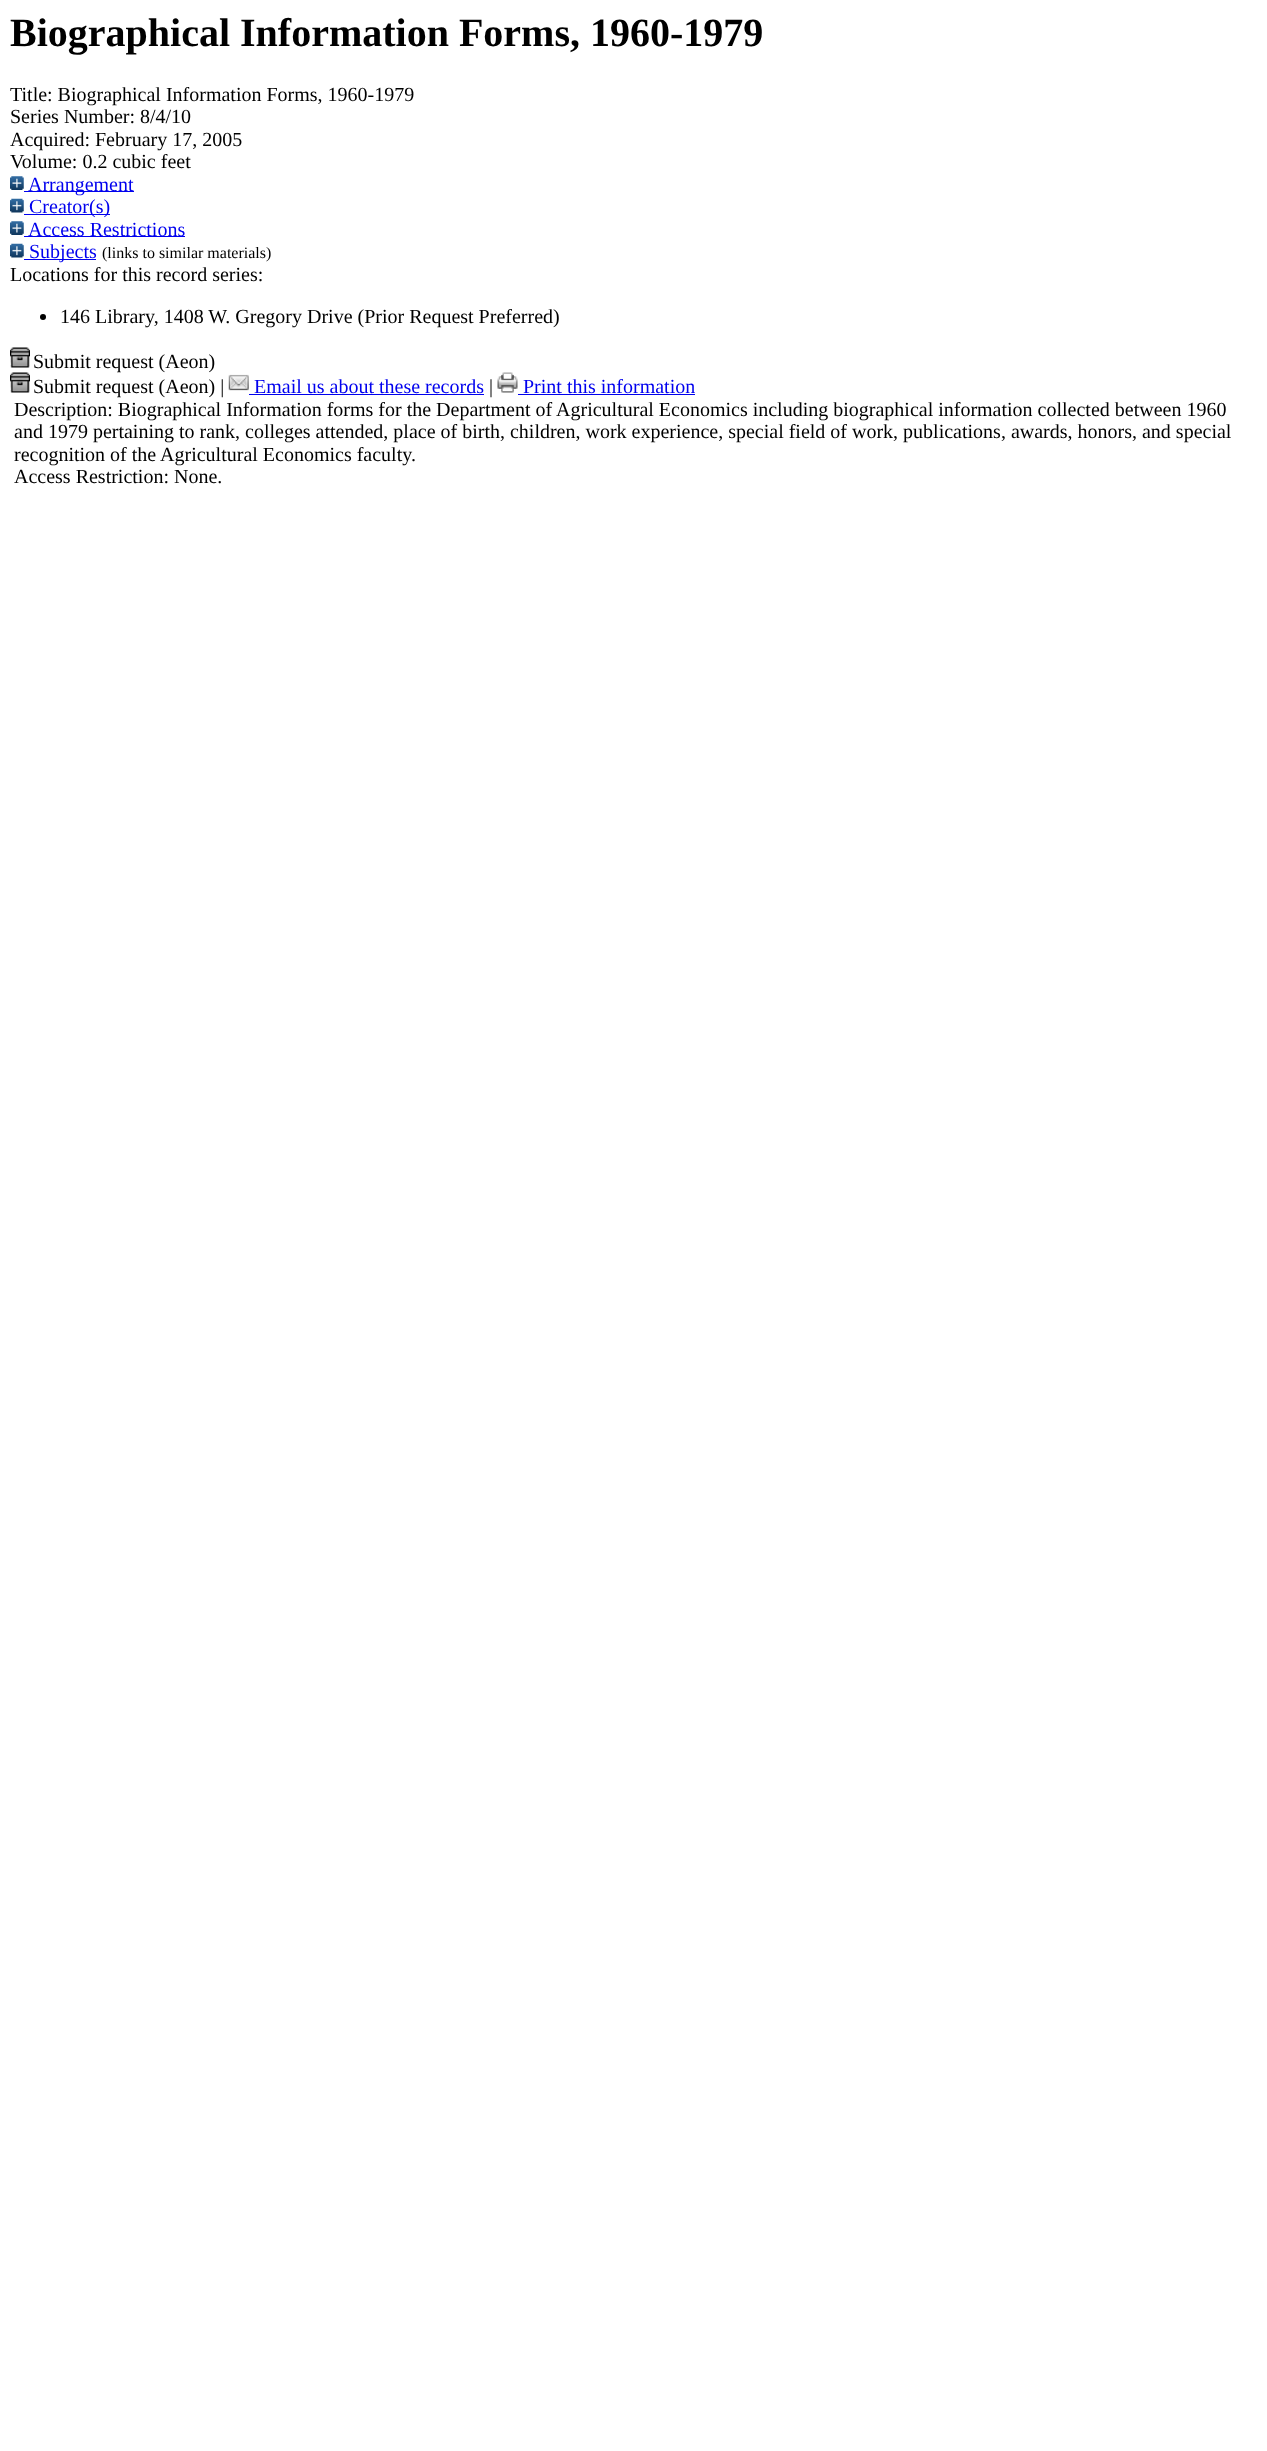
(async () => {
  const canvas = document.querySelector("canvas");
  canvas.width = 1267;
  canvas.height = 2451;
  const ctx = canvas.getContext("2d");
  ctx.miterLimit = 4;
  ctx.fontKerning = "normal";
  async function loadImage(src) {
    const img = new Image();
    img.src = src;
    await img.decode();
    return img;
  }

  ctx.fillStyle = "#ffffff";
  ctx.fillRect(0, 0, 1267, 2451);
  ctx.drawImage(await loadImage("img/1.png"), 10, 176, 14, 14);
  ctx.fillStyle = "#0000ee";
  ctx.fillRect(24, 191, 110, 1);
  ctx.drawImage(await loadImage("img/2.png"), 10, 198, 14, 15);
  ctx.fillRect(24, 214, 86, 1);
  ctx.drawImage(await loadImage("img/1.png"), 10, 221, 14, 14);
  ctx.fillRect(24, 236, 161, 1);
  ctx.drawImage(await loadImage("img/2.png"), 10, 243, 14, 15);
  ctx.fillRect(24, 259, 72, 1);
  ctx.fillStyle = "#000000";
  ctx.beginPath();
  ctx.arc(43, 317, 3, 0, Math.PI * 2);
  ctx.fill();
  ctx.drawImage(await loadImage("img/3.png"), 10, 347, 20, 21);
  ctx.drawImage(await loadImage("img/3.png"), 10, 372, 20, 21);
  ctx.drawImage(await loadImage("img/4.png"), 228, 374, 21, 17);
  ctx.fillStyle = "#0000ee";
  ctx.fillRect(249, 394, 235, 1);
  ctx.drawImage(await loadImage("img/5.png"), 497, 372, 21, 21);
  ctx.fillRect(518, 394, 177, 1);
  ctx.font = "bold 40px Liberation Serif";
  ctx.fillStyle = "#000000";
  ctx.fillText("Biographical Information Forms, 1960-1979", 10, 46);
  ctx.font = "20px Liberation Serif";
  for (const [text, x, y] of [
    ["Title: Biographical Information Forms, 1960-1979", 10, 101],
    ["Series Number: 8/4/10", 10, 123],
    ["Acquired: February 17, 2005", 10, 146],
    ["Volume: 0.2 cubic feet", 10, 168],
  ]) {
    ctx.fillText(text, x, y);
  }
  ctx.fillStyle = "#0000ee";
  for (const [text, x, y] of [
    ["Arrangement", 28, 191],
    ["Creator(s)", 29, 213],
    ["Access Restrictions", 28, 236],
    ["Subjects", 29, 258],
  ]) {
    ctx.fillText(text, x, y);
  }
  ctx.font = "16px Liberation Serif";
  ctx.fillStyle = "#000000";
  ctx.fillText("(links to similar materials)", 102, 258);
  ctx.font = "20px Liberation Serif";
  for (const [text, x, y] of [
    ["Locations for this record series:", 10, 281],
    ["146 Library, 1408 W. Gregory Drive (Prior Request Preferred)", 60, 323],
    ["Submit request (Aeon)", 33, 368],
    ["Submit request (Aeon) |", 33, 393],
  ]) {
    ctx.fillText(text, x, y);
  }
  ctx.fillStyle = "#0000ee";
  ctx.fillText("Email us about these records", 254, 393);
  ctx.fillStyle = "#000000";
  ctx.fillText("|", 489, 393);
  ctx.fillStyle = "#0000ee";
  ctx.fillText("Print this information", 523, 393);
  ctx.fillStyle = "#000000";
  for (const [text, x, y] of [
    ["Description: Biographical Information forms for the Department of Agricultural Economics including biographical information collected between 1960", 14, 416],
    ["and 1979 pertaining to rank, colleges attended, place of birth, children, work experience, special field of work, publications, awards, honors, and special", 14, 438],
    ["recognition of the Agricultural Economics faculty.", 14, 461],
    ["Access Restriction: None.", 14, 483],
  ]) {
    ctx.fillText(text, x, y);
  }
})();
